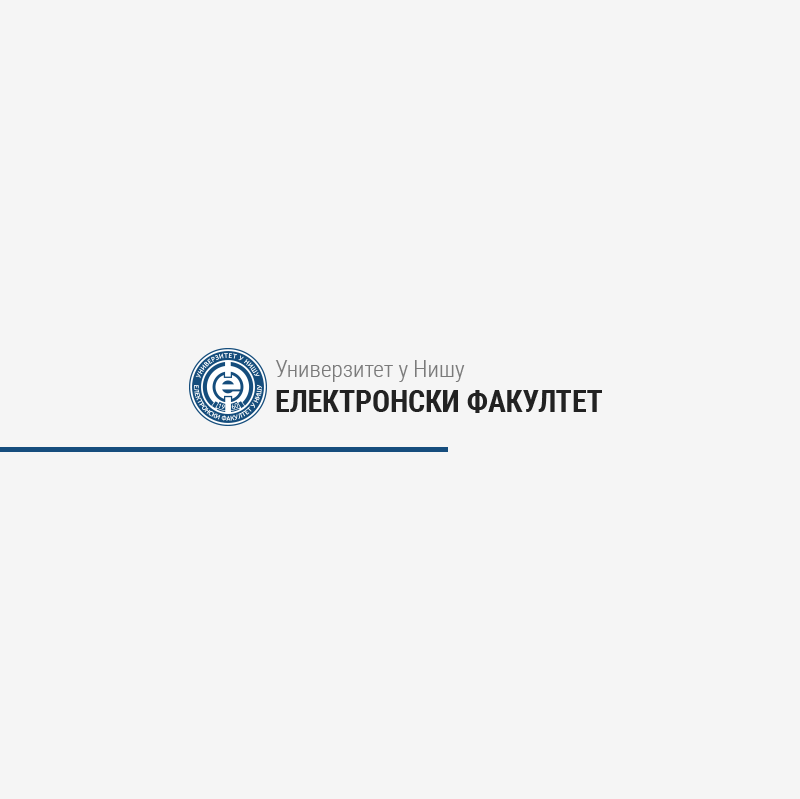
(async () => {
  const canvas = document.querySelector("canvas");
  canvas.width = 800;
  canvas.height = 799;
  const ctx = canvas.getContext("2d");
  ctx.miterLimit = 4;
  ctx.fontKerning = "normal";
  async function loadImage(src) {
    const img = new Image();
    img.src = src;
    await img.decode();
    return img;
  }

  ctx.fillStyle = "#f5f5f5";
  ctx.fillRect(0, 0, 800, 799);
  ctx.drawImage(await loadImage("img/1.png"), 189, 348, 413, 78);
  ctx.fillStyle = "#164d7d";
  ctx.fillRect(0, 447, 448, 5);
})();
